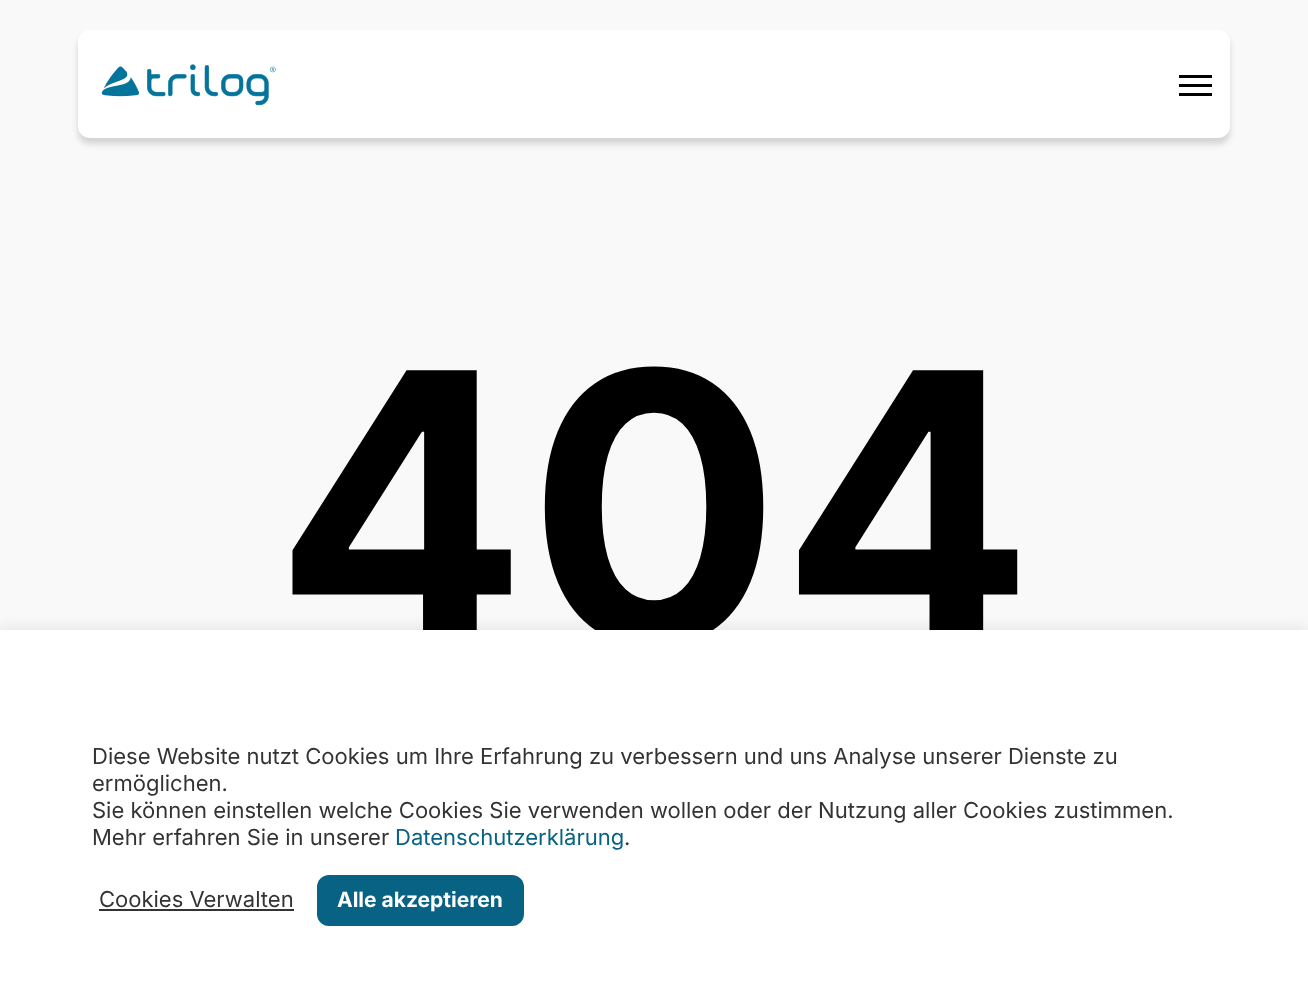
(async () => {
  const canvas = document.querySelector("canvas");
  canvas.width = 1308;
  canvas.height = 986;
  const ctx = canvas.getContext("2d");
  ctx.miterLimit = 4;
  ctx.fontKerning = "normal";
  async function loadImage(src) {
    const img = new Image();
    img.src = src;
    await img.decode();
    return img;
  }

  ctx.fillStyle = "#f9f9f9";
  ctx.fillRect(0, 0, 1308, 986);
  ctx.fillStyle = "rgba(0, 0, 0, 0.15)";
  ctx.filter = "blur(3px)";
  ctx.beginPath();
  ctx.roundRect(78, 36, 1152, 108, 12);
  ctx.fill();
  ctx.filter = "none";
  ctx.fillStyle = "#ffffff";
  ctx.beginPath();
  ctx.roundRect(78, 30, 1152, 108, 12);
  ctx.fill();
  ctx.drawImage(await loadImage("img/1.png"), 101, 64, 175, 42);
  for (const [x, y, w, h, color] of [
    [1179, 75, 33, 3, "#000000"],
    [1179, 93, 33, 3, "#000000"],
    [1179, 84, 33, 3, "#000000"],
  ]) {
    ctx.fillStyle = color;
    ctx.fillRect(x, y, w, h);
  }
  ctx.fillStyle = "rgba(172, 171, 171, 0.3)";
  ctx.filter = "blur(7.5px)";
  ctx.beginPath();
  ctx.rect(0, 629, 1308, 357);
  ctx.fill();
  ctx.filter = "none";
  ctx.font = "bold 375px Inter";
  ctx.fillStyle = "#000000";
  ctx.fillText("404", 274, 643);
  ctx.fillStyle = "#ffffff";
  ctx.fillRect(0, 630, 1308, 356);
  ctx.font = "22px Inter";
  ctx.fillStyle = "#333333";
  for (const [text, x, y] of [
    ["Diese Website nutzt Cookies um Ihre Erfahrung zu verbessern und uns Analyse unserer Dienste zu", 92, 764],
    ["ermöglichen.", 92, 791],
    ["Sie können einstellen welche Cookies Sie verwenden wollen oder der Nutzung aller Cookies zustimmen.", 92, 818],
    ["Mehr erfahren Sie in unserer", 92, 845],
  ]) {
    ctx.fillText(text, x, y);
  }
  ctx.fillStyle = "#076283";
  ctx.fillText("Datenschutzerklärung", 395, 845);
  ctx.fillStyle = "#333333";
  ctx.fillText(".", 624, 845);
  ctx.fillText("Cookies Verwalten", 99, 907);
  ctx.fillRect(99, 909, 195, 2);
  ctx.fillStyle = "#076283";
  ctx.beginPath();
  ctx.roundRect(317, 875, 207, 51, 12);
  ctx.fill();
  ctx.font = "bold 21px Inter";
  ctx.fillStyle = "#ffffff";
  ctx.fillText("Alle akzeptieren", 337, 907);
})();
